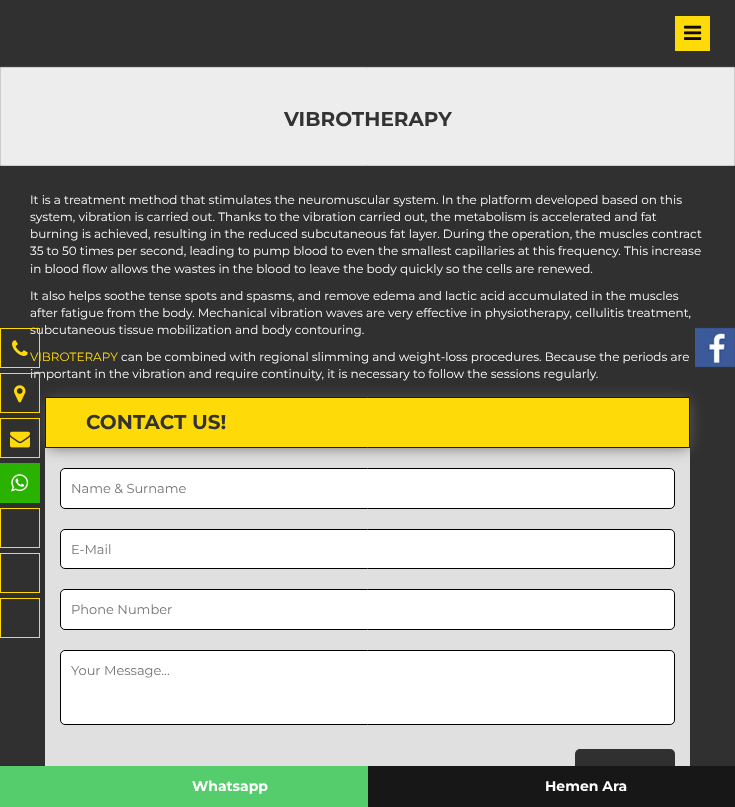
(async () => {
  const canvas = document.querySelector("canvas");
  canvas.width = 735;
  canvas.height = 807;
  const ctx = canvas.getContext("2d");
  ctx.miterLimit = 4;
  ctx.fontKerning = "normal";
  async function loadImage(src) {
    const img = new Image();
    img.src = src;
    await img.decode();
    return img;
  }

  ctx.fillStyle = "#303030";
  ctx.fillRect(0, 0, 735, 807);
  ctx.fillStyle = "#3f3f3f";
  ctx.fillRect(0, 66, 735, 1);
  ctx.fillStyle = "#ffda09";
  ctx.fillRect(675, 16, 35, 35);
  ctx.drawImage(await loadImage("img/1.png"), 684, 25, 18, 15);
  ctx.fillStyle = "#e0e0e0";
  ctx.fillRect(45, 448, 645, 318);
  ctx.fillStyle = "#636363";
  ctx.filter = "blur(7.5px)";
  ctx.beginPath();
  ctx.rect(48, 400, 641, 47);
  ctx.fill();
  ctx.filter = "none";
  ctx.strokeStyle = "#ffda09";
  ctx.strokeRect(0.5, 418.5, 39, 39);
  ctx.drawImage(await loadImage("img/4.png"), 10, 431, 20, 17);
  ctx.fillStyle = "#2ab200";
  ctx.fillRect(0, 463, 40, 40);
  ctx.drawImage(await loadImage("img/5.png"), 11, 474, 18, 18);
  ctx.strokeRect(0.5, 508.5, 39, 39);
  ctx.strokeRect(0.5, 553.5, 39, 39);
  ctx.strokeRect(0.5, 598.5, 39, 39);
  ctx.fillStyle = "#ededed";
  ctx.beginPath();
  ctx.rect(0.5, 67.5, 734, 98);
  ctx.fill();
  ctx.strokeStyle = "#cccccc";
  ctx.stroke();
  ctx.fillStyle = "#ffda09";
  ctx.beginPath();
  ctx.rect(45.5, 397.5, 644, 50);
  ctx.fill();
  ctx.strokeStyle = "#181818";
  ctx.stroke();
  ctx.fillStyle = "#ffffff";
  ctx.beginPath();
  ctx.roundRect(60.5, 468.5, 614, 40, 4.5);
  ctx.fill();
  ctx.strokeStyle = "#000000";
  ctx.stroke();
  ctx.beginPath();
  ctx.roundRect(60.5, 529.5, 614, 39, 4.5);
  ctx.fill();
  ctx.stroke();
  ctx.beginPath();
  ctx.roundRect(60.5, 589.5, 614, 40, 4.5);
  ctx.fill();
  ctx.stroke();
  ctx.beginPath();
  ctx.roundRect(60.5, 650.5, 614, 74, 4.5);
  ctx.fill();
  ctx.stroke();
  ctx.fillStyle = "#303030";
  ctx.beginPath();
  ctx.roundRect(575, 749, 100, 33, 5);
  ctx.fill();
  ctx.drawImage(await loadImage("img/6.png"), 695, 327, 40, 41);
  ctx.fillStyle = "#55cd6c";
  ctx.fillRect(0, 766, 368, 41);
  ctx.fillStyle = "#171717";
  ctx.fillRect(368, 766, 367, 41);
  ctx.font = "bold 20px Montserrat";
  ctx.fillStyle = "#333333";
  ctx.fillText("VIBROTHERAPY", 284, 126);
  ctx.font = "12px Montserrat";
  ctx.fillStyle = "#ffffff";
  for (const [text, x, y] of [
    ["It is a treatment method that stimulates the neuromuscular system. In the platform developed based on this", 30, 204],
    ["system, vibration is carried out. Thanks to the vibration carried out, the metabolism is accelerated and fat", 30, 221],
    ["burning is achieved, resulting in the reduced subcutaneous fat layer. During the operation, the muscles contract", 30, 238],
    ["35 to 50 times per second, leading to pump blood to even the smallest capillaries at this frequency. This increase", 30, 255],
    ["in blood flow allows the wastes in the blood to leave the body quickly so the cells are renewed.", 30, 273],
    ["It also helps soothe tense spots and spasms, and remove edema and lactic acid accumulated in the muscles", 30, 300],
    ["after fatigue from the body. Mechanical vibration waves are very effective in physiotherapy, cellulitis treatment,", 30, 317],
    ["subcutaneous tissue mobilization and body contouring.", 30, 334],
  ]) {
    ctx.fillText(text, x, y);
  }
  ctx.strokeStyle = "#ffda09";
  ctx.strokeRect(0.5, 328.5, 39, 39);
  ctx.drawImage(await loadImage("img/2.png"), 12, 340, 16, 16);
  ctx.fillStyle = "#ffda09";
  ctx.fillText("VIBROTERAPY", 30, 361);
  ctx.fillStyle = "#ffffff";
  ctx.fillText("can be combined with regional slimming and weight-loss procedures. Because the periods are", 121, 361);
  ctx.fillText("important in the vibration and require continuity, it is necessary to follow the sessions regularly.", 30, 378);
  ctx.strokeRect(0.5, 373.5, 39, 39);
  ctx.drawImage(await loadImage("img/3.png"), 14, 385, 12, 18);
  ctx.font = "bold 20px Montserrat";
  ctx.fillStyle = "#333333";
  ctx.fillText("CONTACT US!", 86, 429);
  ctx.font = "13px Montserrat";
  ctx.fillStyle = "#757575";
  for (const [text, x, y] of [
    ["Name & Surname", 71, 493],
    ["E-Mail", 71, 554],
    ["Phone Number", 71, 614],
    ["Your Message...", 71, 675],
  ]) {
    ctx.fillText(text, x, y);
  }
  ctx.font = "bold 14px Montserrat";
  ctx.fillStyle = "#ffffff";
  ctx.fillText("Whatsapp", 192, 791);
  ctx.fillText("Hemen Ara", 545, 791);
})();
